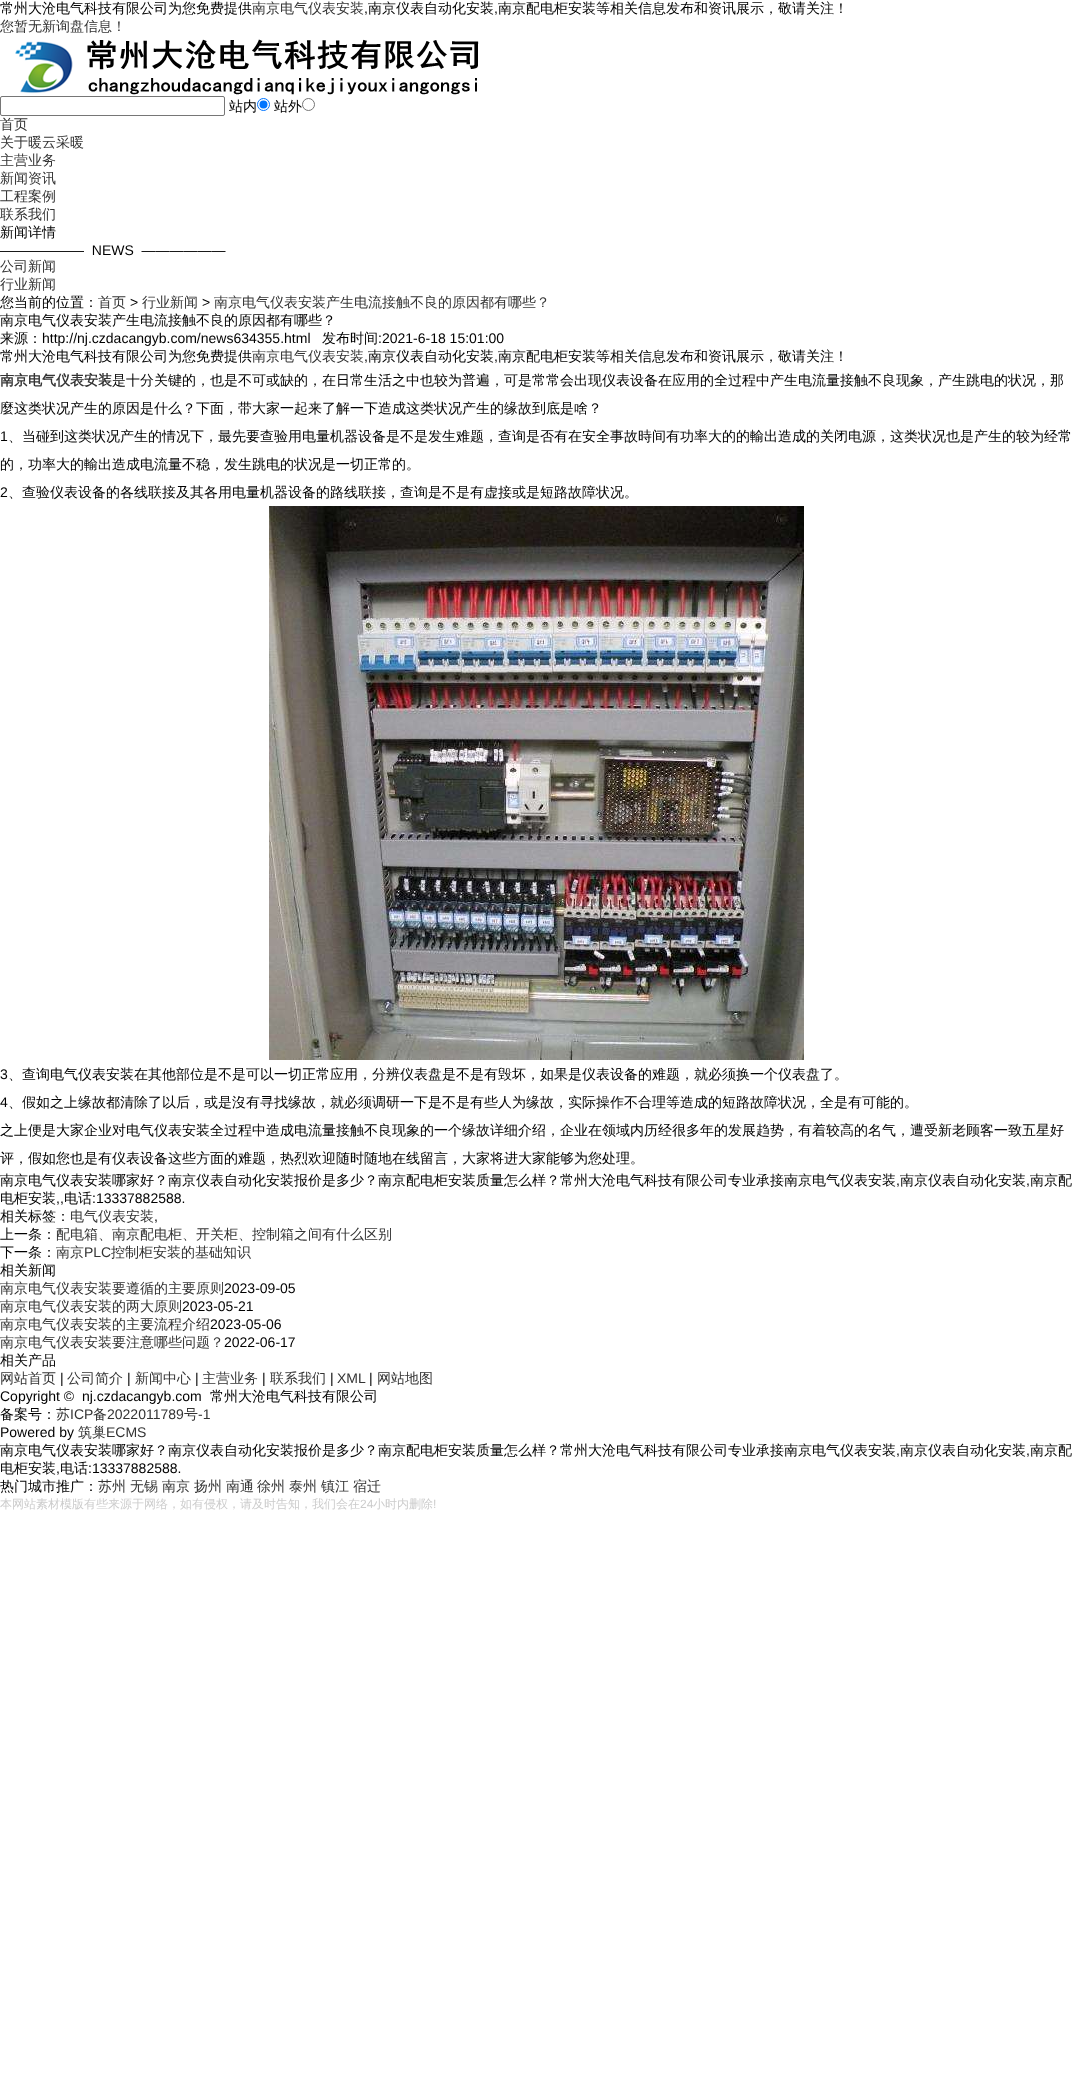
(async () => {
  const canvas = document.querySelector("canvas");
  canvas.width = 1073;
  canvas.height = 2080;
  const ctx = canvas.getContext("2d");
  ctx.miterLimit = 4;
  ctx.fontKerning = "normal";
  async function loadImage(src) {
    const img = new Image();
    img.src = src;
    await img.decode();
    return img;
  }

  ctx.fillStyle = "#ffffff";
  ctx.fillRect(0, 0, 1073, 2080);
  ctx.drawImage(await loadImage("img/1.png"), 15, 39, 464, 56);
  ctx.beginPath();
  ctx.roundRect(0.5, 96.5, 224, 19, 1.5);
  ctx.strokeStyle = "#767676";
  ctx.stroke();
  ctx.beginPath();
  ctx.arc(263.5, 104.5, 6, 0, Math.PI * 2);
  ctx.strokeStyle = "#0075ff";
  ctx.stroke();
  ctx.fillStyle = "#0075ff";
  ctx.beginPath();
  ctx.arc(263.5, 104.5, 4, 0, Math.PI * 2);
  ctx.fill();
  ctx.beginPath();
  ctx.arc(308.5, 104.5, 6, 0, Math.PI * 2);
  ctx.strokeStyle = "#767676";
  ctx.stroke();
  ctx.drawImage(await loadImage("img/2.png"), 269, 506, 535, 554);
  ctx.font = "500 14px WenQuanYi Zen Hei";
  ctx.fillStyle = "#000000";
  ctx.fillText("常州大沧电气科技有限公司为您免费提供", 0, 13);
  ctx.fillStyle = "#333333";
  ctx.fillText("南京电气仪表安装", 252, 13);
  ctx.font = "14px Liberation Sans";
  ctx.fillStyle = "#000000";
  ctx.fillText(",", 364, 13);
  ctx.font = "500 14px WenQuanYi Zen Hei";
  ctx.fillText("南京仪表自动化安装", 368, 13);
  ctx.font = "14px Liberation Sans";
  ctx.fillText(",", 494, 13);
  ctx.font = "500 14px WenQuanYi Zen Hei";
  ctx.fillText("南京配电柜安装等相关信息发布和资讯展示，敬请关注！", 498, 13);
  ctx.fillStyle = "#333333";
  ctx.fillText("您暂无新询盘信息！", 0, 31);
  ctx.fillStyle = "#000000";
  ctx.fillText("站内", 229, 111);
  ctx.fillText("站外", 274, 111);
  ctx.fillStyle = "#333333";
  for (const [text, x, y] of [
    ["首页", 0, 129],
    ["关于暖云采暖", 0, 147],
    ["主营业务", 0, 165],
    ["新闻资讯", 0, 183],
    ["工程案例", 0, 201],
    ["联系我们", 0, 219],
  ]) {
    ctx.fillText(text, x, y);
  }
  ctx.fillStyle = "#000000";
  ctx.fillText("新闻详情", 0, 237);
  ctx.font = "14px Liberation Sans";
  ctx.fillText("——————  NEWS  ——————", 0, 255);
  ctx.font = "500 14px WenQuanYi Zen Hei";
  ctx.fillStyle = "#333333";
  ctx.fillText("公司新闻", 0, 271);
  ctx.fillText("行业新闻", 0, 289);
  ctx.fillStyle = "#000000";
  ctx.fillText("您当前的位置：", 0, 307);
  ctx.fillStyle = "#333333";
  ctx.fillText("首页", 98, 307);
  ctx.font = "14px Liberation Sans";
  ctx.fillStyle = "#000000";
  ctx.fillText(">", 130, 307);
  ctx.font = "500 14px WenQuanYi Zen Hei";
  ctx.fillStyle = "#333333";
  ctx.fillText("行业新闻", 142, 307);
  ctx.font = "14px Liberation Sans";
  ctx.fillStyle = "#000000";
  ctx.fillText(">", 202, 307);
  ctx.font = "500 14px WenQuanYi Zen Hei";
  ctx.fillStyle = "#333333";
  ctx.fillText("南京电气仪表安装产生电流接触不良的原因都有哪些？", 214, 307);
  ctx.fillStyle = "#000000";
  ctx.fillText("南京电气仪表安装产生电流接触不良的原因都有哪些？", 0, 325);
  ctx.fillText("来源：", 0, 343);
  ctx.font = "14px Liberation Sans";
  ctx.fillText("http://nj.czdacangyb.com/news634355.html", 42, 343);
  ctx.font = "500 14px WenQuanYi Zen Hei";
  ctx.fillText("发布时间", 322, 343);
  ctx.font = "14px Liberation Sans";
  ctx.fillText(":2021-6-18 15:01:00", 378, 343);
  ctx.font = "500 14px WenQuanYi Zen Hei";
  ctx.fillText("常州大沧电气科技有限公司为您免费提供", 0, 361);
  ctx.fillStyle = "#333333";
  ctx.fillText("南京电气仪表安装", 252, 361);
  ctx.font = "14px Liberation Sans";
  ctx.fillStyle = "#000000";
  ctx.fillText(",", 364, 361);
  ctx.font = "500 14px WenQuanYi Zen Hei";
  ctx.fillText("南京仪表自动化安装", 368, 361);
  ctx.font = "14px Liberation Sans";
  ctx.fillText(",", 494, 361);
  ctx.font = "500 14px WenQuanYi Zen Hei";
  ctx.fillText("南京配电柜安装等相关信息发布和资讯展示，敬请关注！", 498, 361);
  ctx.font = "bold 14px WenQuanYi Zen Hei";
  ctx.fillStyle = "#333333";
  ctx.fillText("南京电气仪表安装", 0, 385);
  ctx.font = "500 14px WenQuanYi Zen Hei";
  ctx.fillStyle = "#000000";
  ctx.fillText("是十分关键的，也是不可或缺的，在日常生活之中也较为普遍，可是常常会出现仪表设备在应用的全过程中产生电流量接触不良现象，产生跳电的状况，那", 112, 385);
  ctx.fillText("麼这类状况产生的原因是什么？下面，带大家一起来了解一下造成这类状况产生的缘故到底是啥？", 0, 413);
  ctx.font = "14px Liberation Sans";
  ctx.fillText("1", 0, 441);
  ctx.font = "500 14px WenQuanYi Zen Hei";
  ctx.fillText("、当碰到这类状况产生的情况下，最先要查验用电量机器设备是不是发生难题，查询是否有在安全事故時间有功率大的的輸出造成的关闭电源，这类状况也是产生的较为经常", 8, 441);
  ctx.fillText("的，功率大的輸出造成电流量不稳，发生跳电的状况是一切正常的。", 0, 469);
  ctx.font = "14px Liberation Sans";
  ctx.fillText("2", 0, 497);
  ctx.font = "500 14px WenQuanYi Zen Hei";
  ctx.fillText("、查验仪表设备的各线联接及其各用电量机器设备的路线联接，查询是不是有虚接或是短路故障状况。", 8, 497);
  ctx.font = "14px Liberation Sans";
  ctx.fillText("3", 0, 1079);
  ctx.font = "500 14px WenQuanYi Zen Hei";
  ctx.fillText("、查询电气仪表安装在其他部位是不是可以一切正常应用，分辨仪表盘是不是有毁坏，如果是仪表设备的难题，就必须换一个仪表盘了。", 8, 1079);
  ctx.font = "14px Liberation Sans";
  ctx.fillText("4", 0, 1107);
  ctx.font = "500 14px WenQuanYi Zen Hei";
  for (const [text, x, y] of [
    ["、假如之上缘故都清除了以后，或是沒有寻找缘故，就必须调研一下是不是有些人为缘故，实际操作不合理等造成的短路故障状况，全是有可能的。", 8, 1107],
    ["之上便是大家企业对电气仪表安装全过程中造成电流量接触不良现象的一个缘故详细介绍，企业在领域内历经很多年的发展趋势，有着较高的名气，遭受新老顾客一致五星好", 0, 1135],
    ["评，假如您也是有仪表设备这些方面的难题，热烈欢迎随时随地在线留言，大家将进大家能够为您处理。", 0, 1163],
    ["南京电气仪表安装哪家好？南京仪表自动化安装报价是多少？南京配电柜安装质量怎么样？常州大沧电气科技有限公司专业承接南京电气仪表安装", 0, 1185],
  ]) {
    ctx.fillText(text, x, y);
  }
  ctx.font = "14px Liberation Sans";
  ctx.fillText(",", 896, 1185);
  ctx.font = "500 14px WenQuanYi Zen Hei";
  ctx.fillText("南京仪表自动化安装", 900, 1185);
  ctx.font = "14px Liberation Sans";
  ctx.fillText(",", 1026, 1185);
  ctx.font = "500 14px WenQuanYi Zen Hei";
  ctx.fillText("南京配", 1030, 1185);
  ctx.fillText("电柜安装", 0, 1203);
  ctx.font = "14px Liberation Sans";
  ctx.fillText(",,", 56, 1203);
  ctx.font = "500 14px WenQuanYi Zen Hei";
  ctx.fillText("电话", 64, 1203);
  ctx.font = "14px Liberation Sans";
  ctx.fillText(":13337882588.", 92, 1203);
  ctx.font = "500 14px WenQuanYi Zen Hei";
  ctx.fillText("相关标签：", 0, 1221);
  ctx.fillStyle = "#333333";
  ctx.fillText("电气仪表安装", 70, 1221);
  ctx.font = "14px Liberation Sans";
  ctx.fillStyle = "#000000";
  ctx.fillText(",", 154, 1221);
  ctx.font = "500 14px WenQuanYi Zen Hei";
  ctx.fillText("上一条：", 0, 1239);
  ctx.fillStyle = "#333333";
  ctx.fillText("配电箱、南京配电柜、开关柜、控制箱之间有什么区别", 56, 1239);
  ctx.fillStyle = "#000000";
  ctx.fillText("下一条：", 0, 1257);
  ctx.fillStyle = "#333333";
  ctx.fillText("南京", 56, 1257);
  ctx.font = "14px Liberation Sans";
  ctx.fillText("PLC", 84, 1257);
  ctx.font = "500 14px WenQuanYi Zen Hei";
  ctx.fillText("控制柜安装的基础知识", 111, 1257);
  ctx.fillStyle = "#000000";
  ctx.fillText("相关新闻", 0, 1275);
  ctx.fillStyle = "#333333";
  ctx.fillText("南京电气仪表安装要遵循的主要原则", 0, 1293);
  ctx.font = "14px Liberation Sans";
  ctx.fillStyle = "#000000";
  ctx.fillText("2023-09-05", 224, 1293);
  ctx.font = "500 14px WenQuanYi Zen Hei";
  ctx.fillStyle = "#333333";
  ctx.fillText("南京电气仪表安装的两大原则", 0, 1311);
  ctx.font = "14px Liberation Sans";
  ctx.fillStyle = "#000000";
  ctx.fillText("2023-05-21", 182, 1311);
  ctx.font = "500 14px WenQuanYi Zen Hei";
  ctx.fillStyle = "#333333";
  ctx.fillText("南京电气仪表安装的主要流程介绍", 0, 1329);
  ctx.font = "14px Liberation Sans";
  ctx.fillStyle = "#000000";
  ctx.fillText("2023-05-06", 210, 1329);
  ctx.font = "500 14px WenQuanYi Zen Hei";
  ctx.fillStyle = "#333333";
  ctx.fillText("南京电气仪表安装要注意哪些问题？", 0, 1347);
  ctx.font = "14px Liberation Sans";
  ctx.fillStyle = "#000000";
  ctx.fillText("2022-06-17", 224, 1347);
  ctx.font = "500 14px WenQuanYi Zen Hei";
  ctx.fillText("相关产品", 0, 1365);
  ctx.fillStyle = "#333333";
  ctx.fillText("网站首页", 0, 1383);
  ctx.font = "14px Liberation Sans";
  ctx.fillStyle = "#000000";
  ctx.fillText("|", 60, 1383);
  ctx.font = "500 14px WenQuanYi Zen Hei";
  ctx.fillStyle = "#333333";
  ctx.fillText("公司简介", 67, 1383);
  ctx.font = "14px Liberation Sans";
  ctx.fillStyle = "#000000";
  ctx.fillText("|", 127, 1383);
  ctx.font = "500 14px WenQuanYi Zen Hei";
  ctx.fillStyle = "#333333";
  ctx.fillText("新闻中心", 135, 1383);
  ctx.font = "14px Liberation Sans";
  ctx.fillStyle = "#000000";
  ctx.fillText("|", 195, 1383);
  ctx.font = "500 14px WenQuanYi Zen Hei";
  ctx.fillStyle = "#333333";
  ctx.fillText("主营业务", 202, 1383);
  ctx.font = "14px Liberation Sans";
  ctx.fillStyle = "#000000";
  ctx.fillText("|", 262, 1383);
  ctx.font = "500 14px WenQuanYi Zen Hei";
  ctx.fillStyle = "#333333";
  ctx.fillText("联系我们", 270, 1383);
  ctx.font = "14px Liberation Sans";
  ctx.fillStyle = "#000000";
  ctx.fillText("|", 330, 1383);
  ctx.fillStyle = "#333333";
  ctx.fillText("XML", 337, 1383);
  ctx.fillStyle = "#000000";
  ctx.fillText("|", 369, 1383);
  ctx.font = "500 14px WenQuanYi Zen Hei";
  ctx.fillStyle = "#333333";
  ctx.fillText("网站地图", 377, 1383);
  ctx.font = "14px Liberation Sans";
  ctx.fillStyle = "#000000";
  ctx.fillText("Copyright ©  nj.czdacangyb.com", 0, 1401);
  ctx.font = "500 14px WenQuanYi Zen Hei";
  ctx.fillText("常州大沧电气科技有限公司", 210, 1401);
  ctx.fillText("备案号：", 0, 1419);
  ctx.fillStyle = "#333333";
  ctx.fillText("苏", 56, 1419);
  ctx.font = "14px Liberation Sans";
  ctx.fillText("ICP", 70, 1419);
  ctx.font = "500 14px WenQuanYi Zen Hei";
  ctx.fillText("备", 93, 1419);
  ctx.font = "14px Liberation Sans";
  ctx.fillText("2022011789", 107, 1419);
  ctx.font = "500 14px WenQuanYi Zen Hei";
  ctx.fillText("号", 184, 1419);
  ctx.font = "14px Liberation Sans";
  ctx.fillText("-1", 198, 1419);
  ctx.fillStyle = "#000000";
  ctx.fillText("Powered by", 0, 1437);
  ctx.font = "500 14px WenQuanYi Zen Hei";
  ctx.fillStyle = "#333333";
  ctx.fillText("筑巢", 78, 1437);
  ctx.font = "14px Liberation Sans";
  ctx.fillText("ECMS", 106, 1437);
  ctx.font = "500 14px WenQuanYi Zen Hei";
  ctx.fillStyle = "#000000";
  ctx.fillText("南京电气仪表安装哪家好？南京仪表自动化安装报价是多少？南京配电柜安装质量怎么样？常州大沧电气科技有限公司专业承接南京电气仪表安装", 0, 1455);
  ctx.font = "14px Liberation Sans";
  ctx.fillText(",", 896, 1455);
  ctx.font = "500 14px WenQuanYi Zen Hei";
  ctx.fillText("南京仪表自动化安装", 900, 1455);
  ctx.font = "14px Liberation Sans";
  ctx.fillText(",", 1026, 1455);
  ctx.font = "500 14px WenQuanYi Zen Hei";
  ctx.fillText("南京配", 1030, 1455);
  ctx.fillText("电柜安装", 0, 1473);
  ctx.font = "14px Liberation Sans";
  ctx.fillText(",", 56, 1473);
  ctx.font = "500 14px WenQuanYi Zen Hei";
  ctx.fillText("电话", 60, 1473);
  ctx.font = "14px Liberation Sans";
  ctx.fillText(":13337882588.", 88, 1473);
  ctx.font = "500 14px WenQuanYi Zen Hei";
  ctx.fillText("热门城市推广：", 0, 1491);
  ctx.fillStyle = "#333333";
  for (const [text, x, y] of [
    ["苏州", 98, 1491],
    ["无锡", 130, 1491],
    ["南京", 162, 1491],
    ["扬州", 194, 1491],
    ["南通", 226, 1491],
    ["徐州", 257, 1491],
    ["泰州", 289, 1491],
    ["镇江", 321, 1491],
    ["宿迁", 353, 1491],
  ]) {
    ctx.fillText(text, x, y);
  }
  ctx.font = "500 12px WenQuanYi Zen Hei";
  ctx.fillStyle = "#cccccc";
  ctx.fillText("本网站素材模版有些来源于网络，如有侵权，请及时告知，我们会在", 0, 1508);
  ctx.font = "12px Liberation Sans";
  ctx.fillText("24", 360, 1508);
  ctx.font = "500 12px WenQuanYi Zen Hei";
  ctx.fillText("小时内删除", 373, 1508);
  ctx.font = "12px Liberation Sans";
  ctx.fillText("!", 433, 1508);
})();
